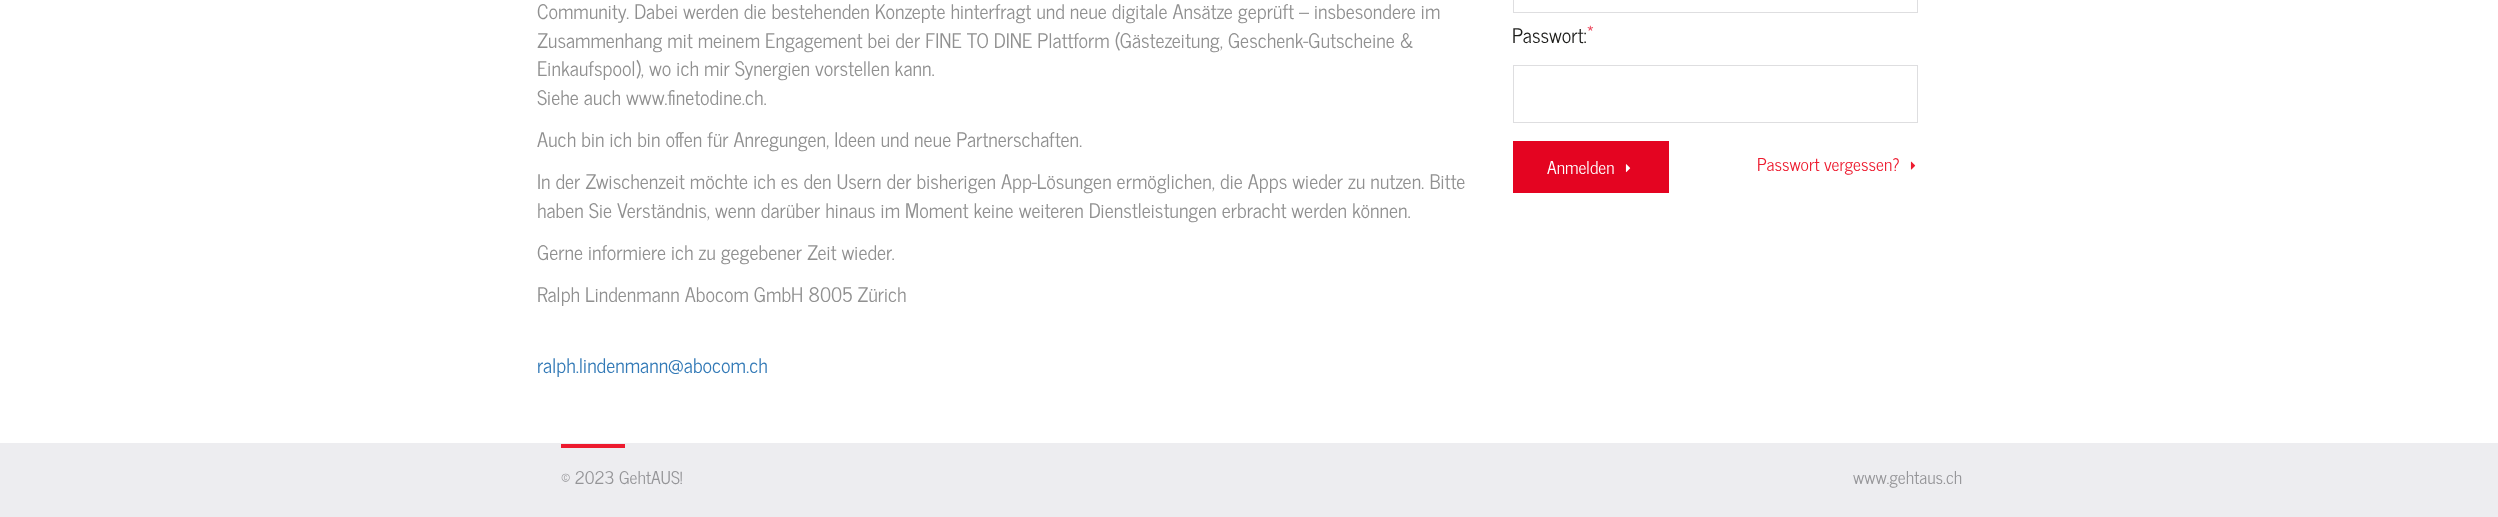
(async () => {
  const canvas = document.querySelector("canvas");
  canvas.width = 2498;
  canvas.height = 517;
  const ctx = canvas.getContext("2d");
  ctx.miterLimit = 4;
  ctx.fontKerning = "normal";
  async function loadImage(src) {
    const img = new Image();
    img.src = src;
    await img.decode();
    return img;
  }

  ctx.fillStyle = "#ffffff";
  ctx.fillRect(0, 0, 2498, 517);
  ctx.strokeStyle = "#dedee0";
  ctx.strokeRect(1513.5, -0.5, 404, 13);
  ctx.strokeRect(1513.5, 65.5, 404, 57);
  ctx.fillStyle = "#e40421";
  ctx.fillRect(1513, 141, 156, 52);
  ctx.drawImage(await loadImage("img/1.png"), 1625, 164, 6, 9);
  ctx.drawImage(await loadImage("img/2.png"), 1910, 161, 6, 9);
  ctx.fillStyle = "#ededf0";
  ctx.fillRect(0, 443, 2498, 74);
  ctx.fillStyle = "#ed1b2f";
  ctx.fillRect(561, 444, 64, 4);
  ctx.font = "20px News Cycle";
  ctx.fillStyle = "#909090";
  for (const [text, x, y] of [
    ["Community. Dabei werden die bestehenden Konzepte hinterfragt und neue digitale Ansätze geprüft – insbesondere im", 537, 19],
    ["Zusammenhang mit meinem Engagement bei der FINE TO DINE Plattform (Gästezeitung, Geschenk-Gutscheine &", 537, 48],
    ["Einkaufspool), wo ich mir Synergien vorstellen kann.", 537, 76],
    ["Siehe auch www.finetodine.ch.", 537, 105],
    ["Auch bin ich bin offen für Anregungen, Ideen und neue Partnerschaften.", 537, 147],
    ["In der Zwischenzeit möchte ich es den Usern der bisherigen App-Lösungen ermöglichen, die Apps wieder zu nutzen. Bitte", 537, 189],
    ["haben Sie Verständnis, wenn darüber hinaus im Moment keine weiteren Dienstleistungen erbracht werden können.", 537, 218],
    ["Gerne informiere ich zu gegebener Zeit wieder.", 537, 260],
    ["Ralph Lindenmann Abocom GmbH 8005 Zürich", 537, 302],
  ]) {
    ctx.fillText(text, x, y);
  }
  ctx.fillStyle = "#337ab7";
  ctx.fillText("ralph.lindenmann@abocom.ch", 537, 373);
  ctx.fillStyle = "#1c1c1a";
  ctx.fillText("Passwort:", 1512, 43);
  ctx.fillStyle = "#eb475c";
  ctx.fillText("*", 1587, 35);
  ctx.font = "17.5px News Cycle";
  ctx.fillStyle = "#ffffff";
  ctx.fillText("Anmelden", 1547, 174);
  ctx.fillStyle = "#ed1b2f";
  ctx.fillText("Passwort vergessen?", 1757, 171);
  ctx.fillStyle = "#959598";
  ctx.fillText("© 2023 GehtAUS!", 561, 484);
  ctx.fillText("www.gehtaus.ch", 1853, 484);
})();
